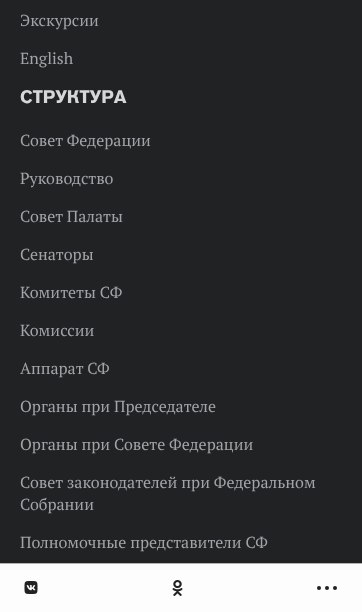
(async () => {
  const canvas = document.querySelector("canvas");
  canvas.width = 362;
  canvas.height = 612;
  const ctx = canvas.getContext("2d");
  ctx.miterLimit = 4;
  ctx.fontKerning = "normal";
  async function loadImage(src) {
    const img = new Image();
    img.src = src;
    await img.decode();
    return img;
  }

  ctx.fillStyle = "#202224";
  ctx.fillRect(0, 0, 362, 612);
  ctx.fillStyle = "#fdfdfd";
  ctx.fillRect(0, 564, 362, 48);
  ctx.fillStyle = "#b2b2b2";
  ctx.fillRect(0, 563, 362, 1);
  ctx.drawImage(await loadImage("img/1.png"), 24, 581, 14, 13);
  ctx.drawImage(await loadImage("img/2.png"), 172, 580, 11, 16);
  ctx.fillStyle = "#222222";
  ctx.beginPath();
  ctx.arc(319, 588, 2, 0, Math.PI * 2);
  ctx.fill();
  ctx.beginPath();
  ctx.arc(327, 588, 2, 0, Math.PI * 2);
  ctx.fill();
  ctx.beginPath();
  ctx.arc(335, 588, 2, 0, Math.PI * 2);
  ctx.fill();
  ctx.font = "16px PT Serif";
  ctx.fillStyle = "#a1a4a8";
  ctx.fillText("Экскурсии", 20, 26);
  ctx.fillText("English", 20, 64);
  ctx.font = "bold 18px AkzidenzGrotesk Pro";
  ctx.fillStyle = "#d7d7d7";
  ctx.fillText("СТРУКТУРА", 20, 103);
  ctx.font = "16px PT Serif";
  ctx.fillStyle = "#a1a4a8";
  for (const [text, x, y] of [
    ["Совет Федерации", 20, 146],
    ["Руководство", 20, 184],
    ["Совет Палаты", 20, 222],
    ["Сенаторы", 20, 260],
    ["Комитеты СФ", 20, 298],
    ["Комиссии", 20, 336],
    ["Аппарат СФ", 20, 374],
    ["Органы при Председателе", 20, 412],
    ["Органы при Совете Федерации", 20, 450],
    ["Совет законодателей при Федеральном", 20, 488],
    ["Собрании", 20, 510],
    ["Полномочные представители СФ", 20, 548],
  ]) {
    ctx.fillText(text, x, y);
  }
})();
